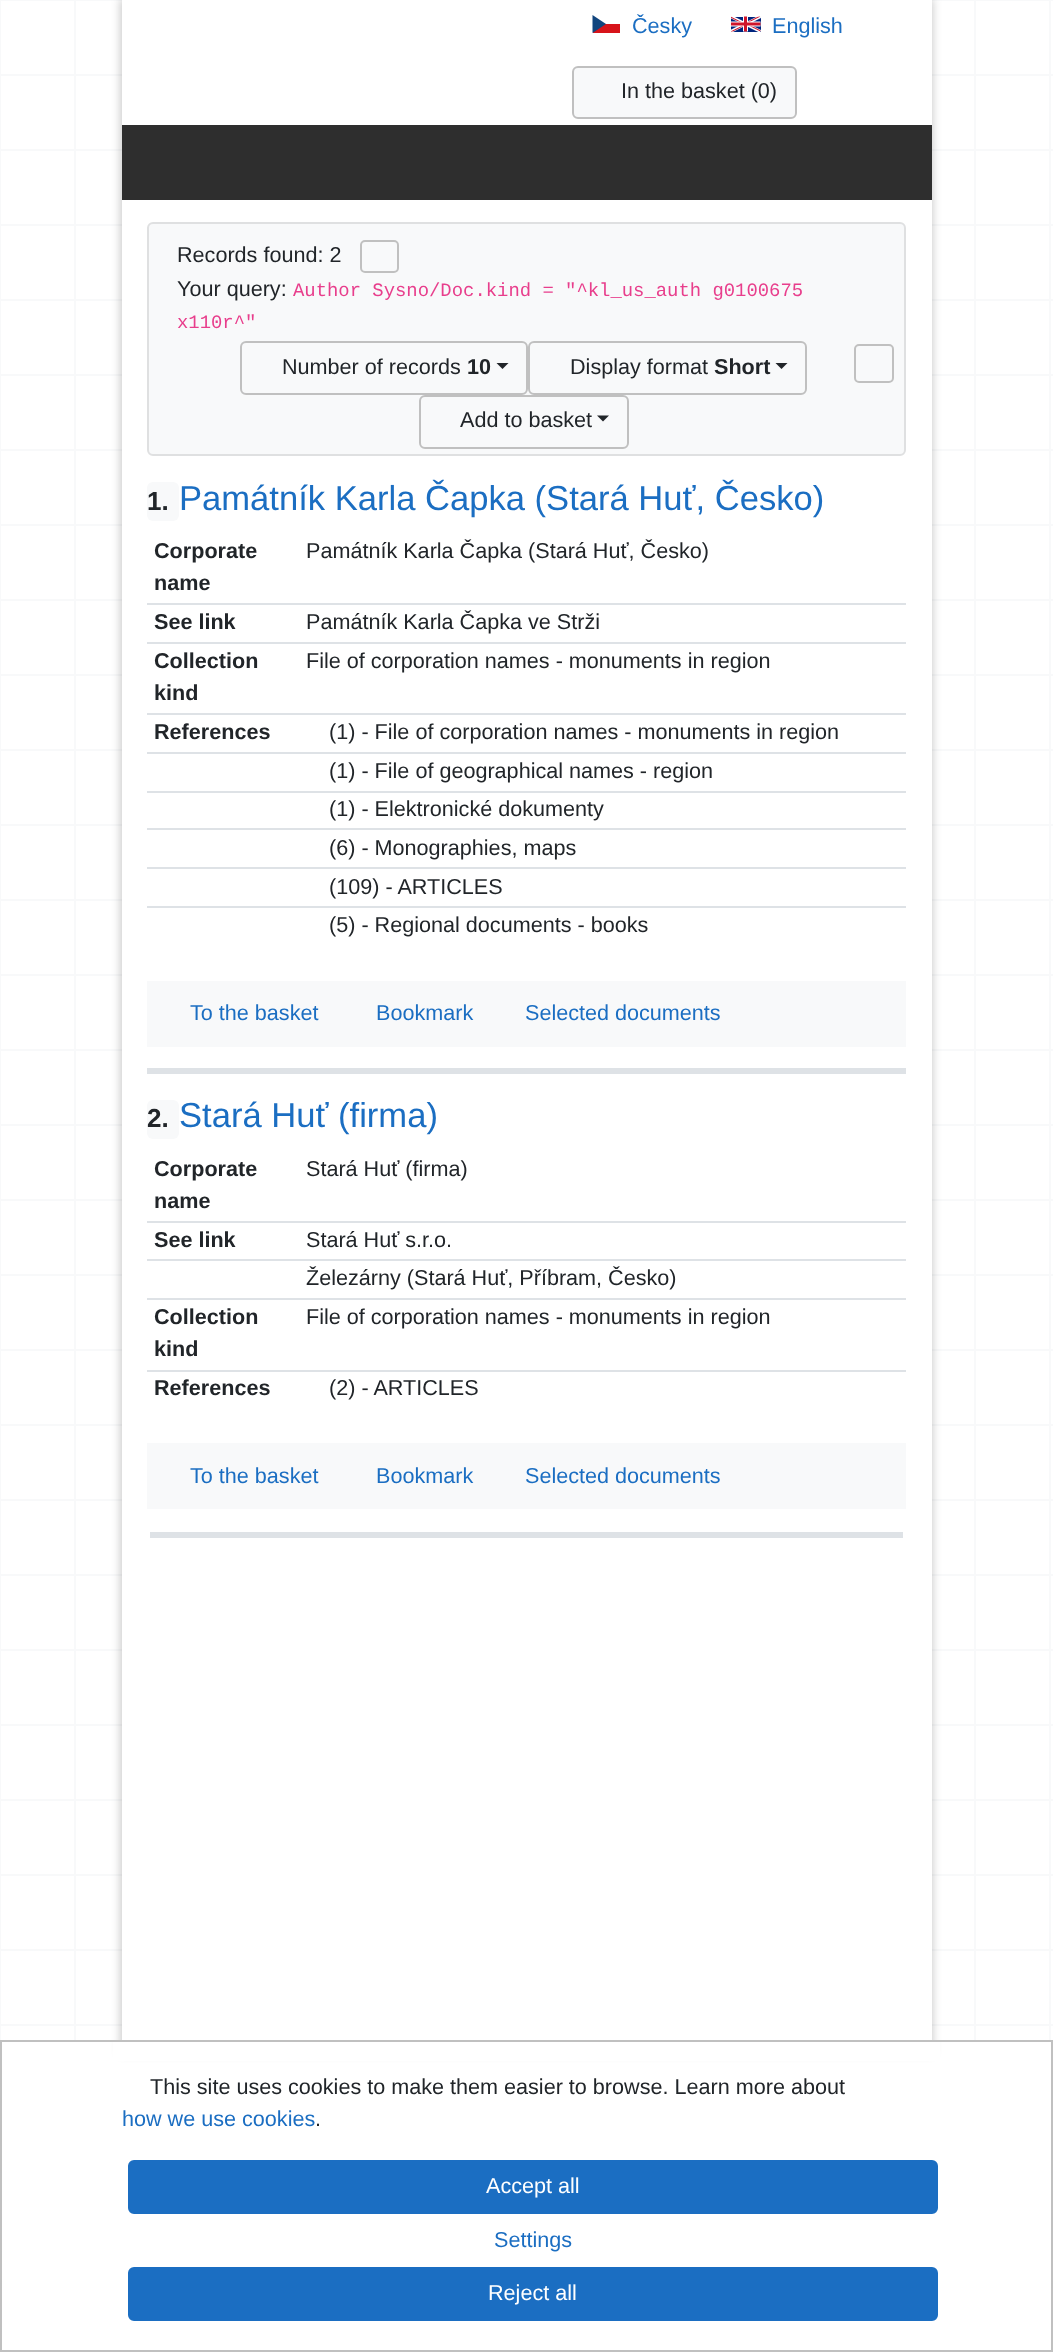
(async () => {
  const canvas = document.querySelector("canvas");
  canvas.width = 1053;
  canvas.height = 2352;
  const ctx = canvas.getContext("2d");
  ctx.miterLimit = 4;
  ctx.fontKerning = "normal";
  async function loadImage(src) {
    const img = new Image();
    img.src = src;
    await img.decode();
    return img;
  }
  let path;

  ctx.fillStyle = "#ffffff";
  ctx.fillRect(0, 0, 1053, 2352);
  for (const [x, y, w, h, color] of [
    [0, 0, 1, 2040, "#f8f9fa"],
    [74, 0, 2, 2040, "#f8f9fa"],
    [974, 0, 2, 2040, "#f8f9fa"],
    [1049, 0, 2, 2040, "#f8f9fa"],
  ]) {
    ctx.fillStyle = color;
    ctx.fillRect(x, y, w, h);
  }
  ctx.drawImage(await loadImage("img/1.png"), 1, 0, 1052, 2026);
  ctx.fillStyle = "rgba(0, 0, 0, 0.2)";
  ctx.filter = "blur(4.5px)";
  ctx.beginPath();
  ctx.rect(120, -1, 813, 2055);
  ctx.fill();
  ctx.filter = "none";
  ctx.fillStyle = "#ffffff";
  ctx.fillRect(122, 0, 810, 2040);
  ctx.fillStyle = "#d7141a";
  ctx.fillRect(593, 24, 27, 9);
  ctx.fillStyle = "#11457e";
  path = new Path2D("M606 24L592.5 15V33Z");
  ctx.fill(path);
  ctx.drawImage(await loadImage("img/2.png"), 731, 16, 30, 16);
  ctx.fillStyle = "#f8f9fa";
  ctx.beginPath();
  ctx.roundRect(573, 67, 223, 51, 5);
  ctx.fill();
  ctx.strokeStyle = "#c0c0c0";
  ctx.lineWidth = 2;
  ctx.stroke();
  ctx.fillStyle = "#2e2e2e";
  ctx.fillRect(122, 125, 810, 75);
  ctx.fillStyle = "#f8f9fa";
  ctx.beginPath();
  ctx.roundRect(148, 223, 757, 232, 5);
  ctx.fill();
  ctx.strokeStyle = "#dfe0e1";
  ctx.stroke();
  ctx.beginPath();
  ctx.roundRect(361, 241, 37, 31, 4);
  ctx.strokeStyle = "#c0c0c0";
  ctx.stroke();
  ctx.beginPath();
  ctx.roundRect(241, 342, 286, 52, 5);
  ctx.stroke();
  ctx.fillStyle = "#212529";
  path = new Path2D("M496.5 363H508.5L502.5 369Z");
  ctx.fill(path);
  ctx.beginPath();
  ctx.roundRect(529, 342, 277, 52, 5);
  ctx.stroke();
  path = new Path2D("M775.5 363H787.5L781.5 369Z");
  ctx.fill(path);
  ctx.beginPath();
  ctx.roundRect(420, 396, 208, 52, 5);
  ctx.stroke();
  path = new Path2D("M597 415.5H609L603 421.5Z");
  ctx.fill(path);
  ctx.beginPath();
  ctx.roundRect(855, 345, 38, 37, 4);
  ctx.stroke();
  ctx.fillStyle = "#dee2e6";
  ctx.fillRect(147, 1068, 759, 6);
  ctx.fillStyle = "#f8f9fa";
  ctx.beginPath();
  ctx.roundRect(147, 482, 32, 39, 6);
  ctx.fill();
  for (const [x, y, w, h, color] of [
    [147, 603, 759, 2, "#dee2e6"],
    [147, 642, 759, 2, "#dee2e6"],
    [147, 713, 759, 2, "#dee2e6"],
    [147, 752, 759, 2, "#dee2e6"],
    [147, 791, 759, 2, "#dee2e6"],
    [147, 828, 759, 2, "#dee2e6"],
    [147, 867, 759, 2, "#dee2e6"],
    [147, 906, 759, 2, "#dee2e6"],
    [147, 981, 759, 66, "#f8f9fa"],
    [150, 1532, 753, 6, "#dee2e6"],
  ]) {
    ctx.fillStyle = color;
    ctx.fillRect(x, y, w, h);
  }
  ctx.fillStyle = "#f8f9fa";
  ctx.beginPath();
  ctx.roundRect(147, 1100, 32, 39, 6);
  ctx.fill();
  for (const [x, y, w, h, color] of [
    [147, 1221, 759, 2, "#dee2e6"],
    [147, 1259, 759, 2, "#dee2e6"],
    [147, 1298, 759, 2, "#dee2e6"],
    [147, 1370, 759, 2, "#dee2e6"],
    [147, 1443, 759, 66, "#f8f9fa"],
    [113, 2042, 827, 19, "#ffffff"],
  ]) {
    ctx.fillStyle = color;
    ctx.fillRect(x, y, w, h);
  }
  ctx.strokeRect(1, 2041, 1051, 310);
  ctx.fillStyle = "#1b6ec2";
  ctx.beginPath();
  ctx.roundRect(129, 2161, 808, 52, 5);
  ctx.fill();
  ctx.strokeStyle = "#1b6ec2";
  ctx.stroke();
  ctx.beginPath();
  ctx.roundRect(129, 2268, 808, 52, 5);
  ctx.fill();
  ctx.stroke();
  ctx.font = "21.6px Liberation Sans";
  ctx.fillText("Česky", 632, 33);
  ctx.fillText("English", 772, 33);
  ctx.fillStyle = "#212529";
  for (const [text, x, y] of [
    ["In the basket (0)", 621, 98],
    ["Records found: 2", 177, 262],
    ["Your query:", 177, 296],
  ]) {
    ctx.fillText(text, x, y);
  }
  ctx.font = "18.9px Liberation Mono";
  ctx.fillStyle = "#e83e8c";
  ctx.fillText("Author Sysno/Doc.kind = \"^kl_us_auth g0100675", 293, 296);
  ctx.fillText("x110r^\"", 177, 328);
  ctx.font = "21.6px Liberation Sans";
  ctx.fillStyle = "#212529";
  ctx.fillText("Number of records", 282, 374);
  ctx.font = "bold 21.6px Liberation Sans";
  ctx.fillText("10", 467, 374);
  ctx.font = "21.6px Liberation Sans";
  ctx.fillText("Display format", 570, 374);
  ctx.font = "bold 21.6px Liberation Sans";
  ctx.fillText("Short", 714, 374);
  ctx.font = "21.6px Liberation Sans";
  ctx.fillText("Add to basket", 460, 427);
  ctx.font = "bold 26px Liberation Sans";
  ctx.fillText("1.", 147, 510);
  ctx.font = "34.6px Liberation Sans";
  ctx.fillStyle = "#1b6ec2";
  ctx.fillText("Památník Karla Čapka (Stará Huť, Česko)", 179, 510);
  ctx.font = "bold 21.6px Liberation Sans";
  ctx.fillStyle = "#212529";
  ctx.fillText("Corporate", 154, 558);
  ctx.fillText("name", 154, 590);
  ctx.font = "21.6px Liberation Sans";
  ctx.fillText("Památník Karla Čapka (Stará Huť, Česko)", 306, 558);
  ctx.font = "bold 21.6px Liberation Sans";
  ctx.fillText("See link", 154, 629);
  ctx.font = "21.6px Liberation Sans";
  ctx.fillText("Památník Karla Čapka ve Strži", 306, 629);
  ctx.font = "bold 21.6px Liberation Sans";
  ctx.fillText("Collection", 154, 668);
  ctx.fillText("kind", 154, 700);
  ctx.font = "21.6px Liberation Sans";
  ctx.fillText("File of corporation names - monuments in region", 306, 668);
  ctx.font = "bold 21.6px Liberation Sans";
  ctx.fillText("References", 154, 739);
  ctx.font = "21.6px Liberation Sans";
  for (const [text, x, y] of [
    ["(1) - File of corporation names - monuments in region", 329, 739],
    ["(1) - File of geographical names - region", 329, 778],
    ["(1) - Elektronické dokumenty", 329, 816],
    ["(6) - Monographies, maps", 329, 855],
    ["(109) - ARTICLES", 329, 894],
    ["(5) - Regional documents - books", 329, 932],
  ]) {
    ctx.fillText(text, x, y);
  }
  ctx.fillStyle = "#1b6ec2";
  for (const [text, x, y] of [
    ["To the basket", 190, 1020],
    ["Bookmark", 376, 1020],
    ["Selected documents", 525, 1020],
  ]) {
    ctx.fillText(text, x, y);
  }
  ctx.font = "bold 26px Liberation Sans";
  ctx.fillStyle = "#212529";
  ctx.fillText("2.", 147, 1127);
  ctx.font = "34.6px Liberation Sans";
  ctx.fillStyle = "#1b6ec2";
  ctx.fillText("Stará Huť (firma)", 179, 1127);
  ctx.font = "bold 21.6px Liberation Sans";
  ctx.fillStyle = "#212529";
  ctx.fillText("Corporate", 154, 1176);
  ctx.fillText("name", 154, 1208);
  ctx.font = "21.6px Liberation Sans";
  ctx.fillText("Stará Huť (firma)", 306, 1176);
  ctx.font = "bold 21.6px Liberation Sans";
  ctx.fillText("See link", 154, 1247);
  ctx.font = "21.6px Liberation Sans";
  ctx.fillText("Stará Huť s.r.o.", 306, 1247);
  ctx.fillText("Železárny (Stará Huť, Příbram, Česko)", 306, 1285);
  ctx.font = "bold 21.6px Liberation Sans";
  ctx.fillText("Collection", 154, 1324);
  ctx.fillText("kind", 154, 1356);
  ctx.font = "21.6px Liberation Sans";
  ctx.fillText("File of corporation names - monuments in region", 306, 1324);
  ctx.font = "bold 21.6px Liberation Sans";
  ctx.fillText("References", 154, 1395);
  ctx.font = "21.6px Liberation Sans";
  ctx.fillText("(2) - ARTICLES", 329, 1395);
  ctx.fillStyle = "#1b6ec2";
  for (const [text, x, y] of [
    ["To the basket", 190, 1483],
    ["Bookmark", 376, 1483],
    ["Selected documents", 525, 1483],
  ]) {
    ctx.fillText(text, x, y);
  }
  ctx.fillStyle = "#212529";
  ctx.fillText("This site uses cookies to make them easier to browse. Learn more about", 150, 2094);
  ctx.fillStyle = "#1b6ec2";
  ctx.fillText("how we use cookies", 122, 2126);
  ctx.fillStyle = "#212529";
  ctx.fillText(".", 315, 2126);
  ctx.fillStyle = "#ffffff";
  ctx.fillText("Accept all", 486, 2193);
  ctx.fillStyle = "#1b6ec2";
  ctx.fillText("Settings", 494, 2247);
  ctx.fillStyle = "#ffffff";
  ctx.fillText("Reject all", 488, 2300);
})();
